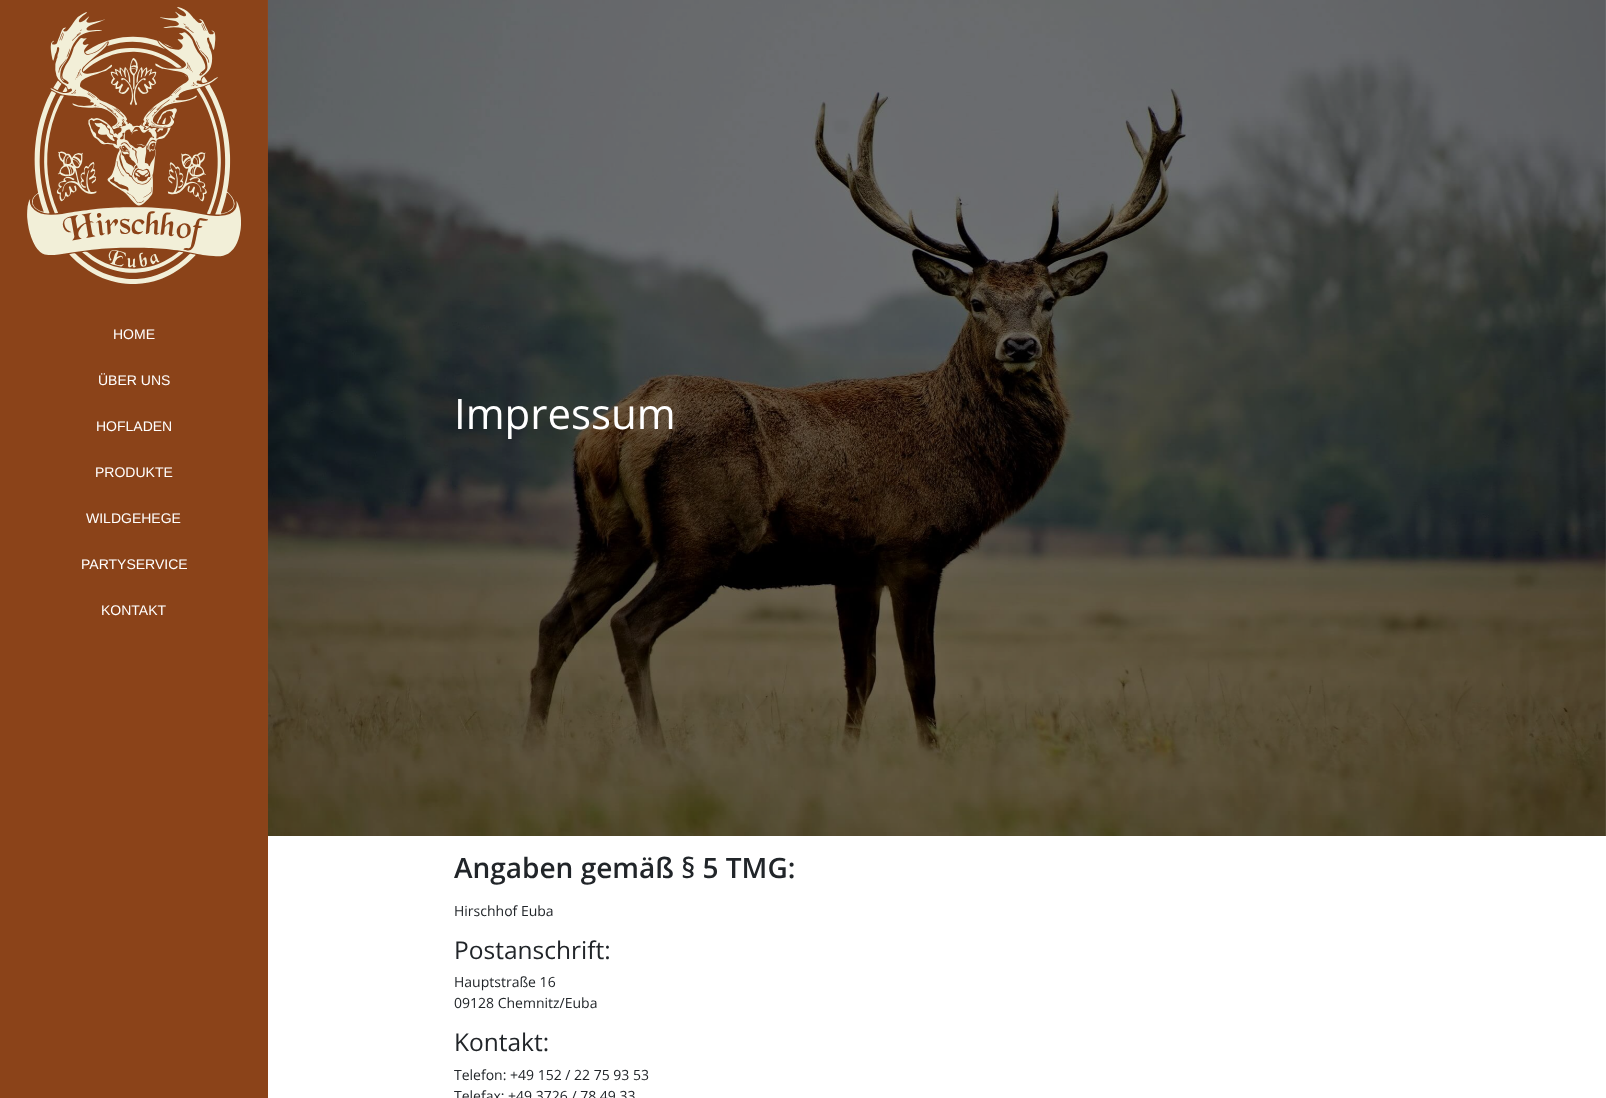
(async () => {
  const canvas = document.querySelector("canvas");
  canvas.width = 1606;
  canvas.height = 1098;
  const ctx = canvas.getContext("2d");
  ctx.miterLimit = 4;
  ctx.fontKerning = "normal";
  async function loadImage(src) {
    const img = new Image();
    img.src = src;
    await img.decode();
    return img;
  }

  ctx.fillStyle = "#ffffff";
  ctx.fillRect(0, 0, 1606, 1098);
  ctx.fillStyle = "#8b4319";
  ctx.fillRect(0, 0, 268, 1098);
  ctx.drawImage(await loadImage("img/1.png"), 27, 7, 214, 277);
  ctx.drawImage(await loadImage("img/2.png"), 267, 0, 1339, 836);
  ctx.font = "14px Liberation Sans";
  ctx.fillStyle = "#ffffff";
  for (const [text, x, y] of [
    ["HOME", 113, 339],
    ["ÜBER UNS", 98, 385],
    ["HOFLADEN", 96, 431],
    ["PRODUKTE", 95, 477],
    ["WILDGEHEGE", 86, 523],
    ["PARTYSERVICE", 81, 569],
    ["KONTAKT", 101, 615],
  ]) {
    ctx.fillText(text, x, y);
  }
  ctx.font = "42px Open Sans";
  ctx.fillText("Impressum", 454, 429);
  ctx.font = "600 28px Open Sans";
  ctx.fillStyle = "#212529";
  ctx.fillText("Angaben gemäß § 5 TMG:", 454, 878);
  ctx.font = "14px Open Sans";
  ctx.fillText("Hirschhof Euba", 454, 916);
  ctx.font = "24.5px Open Sans";
  ctx.fillText("Postanschrift:", 454, 959);
  ctx.font = "14px Open Sans";
  ctx.fillText("Hauptstraße 16", 454, 987);
  ctx.fillText("09128 Chemnitz/Euba", 454, 1008);
  ctx.font = "24.5px Open Sans";
  ctx.fillText("Kontakt:", 454, 1051);
  ctx.font = "14px Open Sans";
  ctx.fillText("Telefon: +49 152 / 22 75 93 53", 454, 1080);
  ctx.fillText("Telefax: +49 3726 / 78 49 33", 454, 1101);
})();
